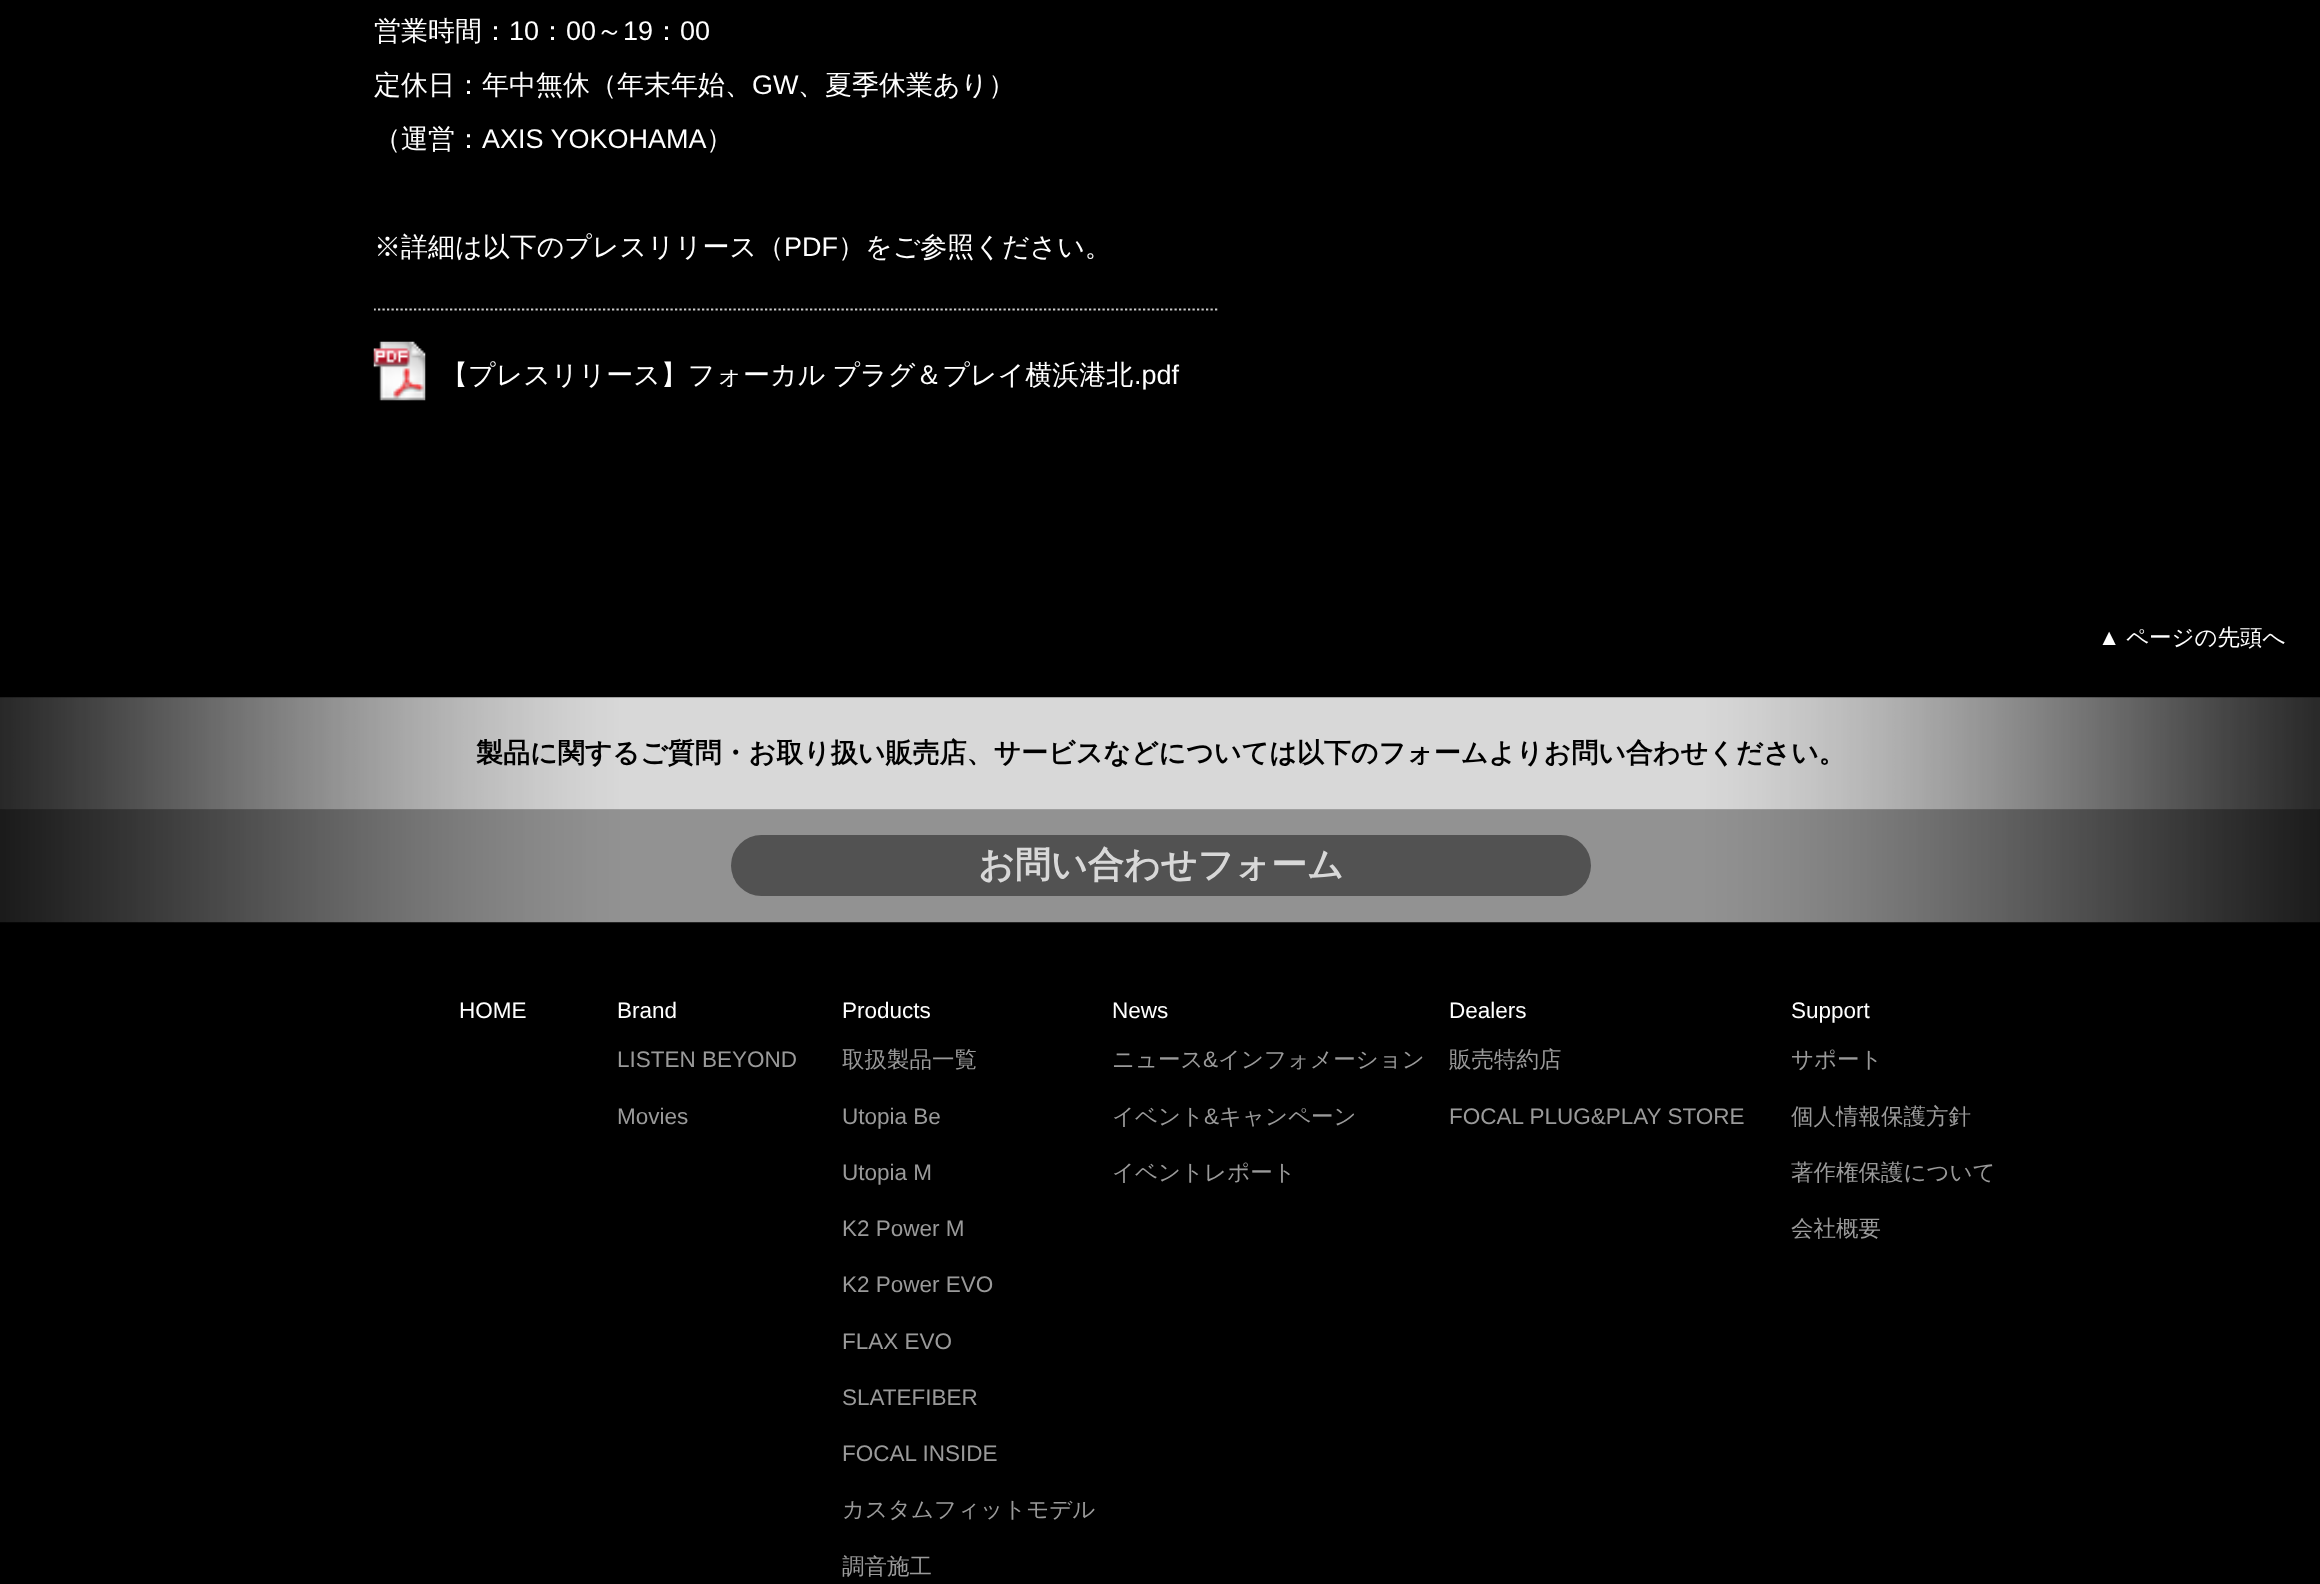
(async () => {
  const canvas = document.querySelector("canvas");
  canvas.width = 2320;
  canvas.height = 1584;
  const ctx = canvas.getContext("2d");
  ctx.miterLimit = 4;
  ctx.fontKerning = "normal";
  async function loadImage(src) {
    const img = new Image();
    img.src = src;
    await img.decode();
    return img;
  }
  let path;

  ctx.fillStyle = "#000000";
  ctx.fillRect(0, 0, 2320, 1584);
  ctx.save();
  ctx.beginPath();
  ctx.rect(374, 0, 1575, 578);
  ctx.clip();
  path = new Path2D("M373.5 309.5H1219.5");
  ctx.strokeStyle = "#cccccc";
  ctx.lineWidth = 2.2;
  ctx.setLineDash([2.25, 2.25]);
  ctx.stroke(path);
  ctx.restore();
  ctx.drawImage(await loadImage("img/1.png"), 373, 341, 53, 60);
  ctx.drawImage(await loadImage("img/2.png"), 0, 697, 2320, 113);
  ctx.drawImage(await loadImage("img/3.png"), 0, 809, 2320, 114);
  ctx.fillStyle = "#525252";
  ctx.beginPath();
  ctx.roundRect(731, 835, 860, 61, 30.5);
  ctx.fill();
  ctx.font = "500 27px WenQuanYi Zen Hei";
  ctx.fillStyle = "#ffffff";
  ctx.fillText("営業時間：", 374, 40);
  ctx.font = "27px Liberation Sans";
  ctx.fillText("10", 509, 40);
  ctx.font = "500 27px WenQuanYi Zen Hei";
  ctx.fillText("：", 539, 40);
  ctx.font = "27px Liberation Sans";
  ctx.fillText("00", 566, 40);
  ctx.font = "500 27px WenQuanYi Zen Hei";
  ctx.fillText("～", 596, 40);
  ctx.font = "27px Liberation Sans";
  ctx.fillText("19", 623, 40);
  ctx.font = "500 27px WenQuanYi Zen Hei";
  ctx.fillText("：", 653, 40);
  ctx.font = "27px Liberation Sans";
  ctx.fillText("00", 680, 40);
  ctx.font = "500 27px WenQuanYi Zen Hei";
  ctx.fillText("定休日：年中無休（年末年始、", 374, 94);
  ctx.font = "27px Liberation Sans";
  ctx.fillText("GW", 752, 94);
  ctx.font = "500 27px WenQuanYi Zen Hei";
  ctx.fillText("、夏季休業あり）", 798, 94);
  ctx.fillText("（運営：", 374, 148);
  ctx.font = "27px Liberation Sans";
  ctx.fillText("AXIS YOKOHAMA", 482, 148);
  ctx.font = "500 27px WenQuanYi Zen Hei";
  ctx.fillText("）", 706, 148);
  ctx.fillText("※詳細は以下のプレスリリース（", 374, 256);
  ctx.font = "27px Liberation Sans";
  ctx.fillText("PDF", 784, 256);
  ctx.font = "500 27px WenQuanYi Zen Hei";
  ctx.fillText("）をご参照ください。", 838, 256);
  ctx.wordSpacing = "-1px";
  ctx.fillText("【プレスリリース】フォーカル プラグ＆プレイ横浜港北", 441, 384);
  ctx.wordSpacing = "0px";
  ctx.font = "27px Liberation Sans";
  ctx.fillText(".pdf", 1134, 384);
  ctx.font = "22.5px Liberation Sans";
  ctx.fillText("▲", 2098, 645);
  ctx.font = "500 22.5px WenQuanYi Zen Hei";
  ctx.fillText("ページの先頭へ", 2126, 645);
  ctx.font = "bold 27px WenQuanYi Zen Hei";
  ctx.fillStyle = "#000000";
  ctx.fillText("製品に関するご質問・お取り扱い販売店、サービスなどについては以下のフォームよりお問い合わせください。", 476, 762);
  ctx.font = "bold 36px WenQuanYi Zen Hei";
  ctx.fillStyle = "#d8d8d8";
  ctx.fillText("お問い合わせフォーム", 978, 877);
  ctx.font = "22.5px Liberation Sans";
  ctx.fillStyle = "#ffffff";
  ctx.fillText("HOME", 459, 1018);
  ctx.fillText("Brand", 617, 1018);
  ctx.fillStyle = "#9a9a9a";
  ctx.fillText("LISTEN BEYOND", 617, 1067);
  ctx.fillText("Movies", 617, 1124);
  ctx.fillStyle = "#ffffff";
  ctx.fillText("Products", 842, 1018);
  ctx.font = "500 22.5px WenQuanYi Zen Hei";
  ctx.fillStyle = "#9a9a9a";
  ctx.fillText("取扱製品一覧", 842, 1067);
  ctx.font = "22.5px Liberation Sans";
  for (const [text, x, y] of [
    ["Utopia Be", 842, 1124],
    ["Utopia M", 842, 1180],
    ["K2 Power M", 842, 1236],
    ["K2 Power EVO", 842, 1292],
    ["FLAX EVO", 842, 1349],
    ["SLATEFIBER", 842, 1405],
    ["FOCAL INSIDE", 842, 1461],
  ]) {
    ctx.fillText(text, x, y);
  }
  ctx.font = "500 22.5px WenQuanYi Zen Hei";
  ctx.fillText("カスタムフィットモデル", 842, 1517);
  ctx.fillText("調音施工", 842, 1574);
  ctx.font = "22.5px Liberation Sans";
  ctx.fillStyle = "#ffffff";
  ctx.fillText("News", 1112, 1018);
  ctx.font = "500 22.5px WenQuanYi Zen Hei";
  ctx.fillStyle = "#9a9a9a";
  ctx.fillText("ニュース", 1112, 1067);
  ctx.font = "22.5px Liberation Sans";
  ctx.fillText("&", 1203, 1067);
  ctx.font = "500 22.5px WenQuanYi Zen Hei";
  ctx.fillText("インフォメーション", 1218, 1067);
  ctx.fillText("イベント", 1112, 1124);
  ctx.font = "22.5px Liberation Sans";
  ctx.fillText("&", 1204, 1124);
  ctx.font = "500 22.5px WenQuanYi Zen Hei";
  ctx.fillText("キャンペーン", 1219, 1124);
  ctx.fillText("イベントレポート", 1112, 1180);
  ctx.font = "22.5px Liberation Sans";
  ctx.fillStyle = "#ffffff";
  ctx.fillText("Dealers", 1449, 1018);
  ctx.font = "500 22.5px WenQuanYi Zen Hei";
  ctx.fillStyle = "#9a9a9a";
  ctx.fillText("販売特約店", 1449, 1067);
  ctx.font = "22.5px Liberation Sans";
  ctx.fillText("FOCAL PLUG&PLAY STORE", 1449, 1124);
  ctx.fillStyle = "#ffffff";
  ctx.fillText("Support", 1791, 1018);
  ctx.font = "500 22.5px WenQuanYi Zen Hei";
  ctx.fillStyle = "#9a9a9a";
  for (const [text, x, y] of [
    ["サポート", 1791, 1067],
    ["個人情報保護方針", 1791, 1124],
    ["著作権保護について", 1791, 1180],
    ["会社概要", 1791, 1236],
  ]) {
    ctx.fillText(text, x, y);
  }
})();
